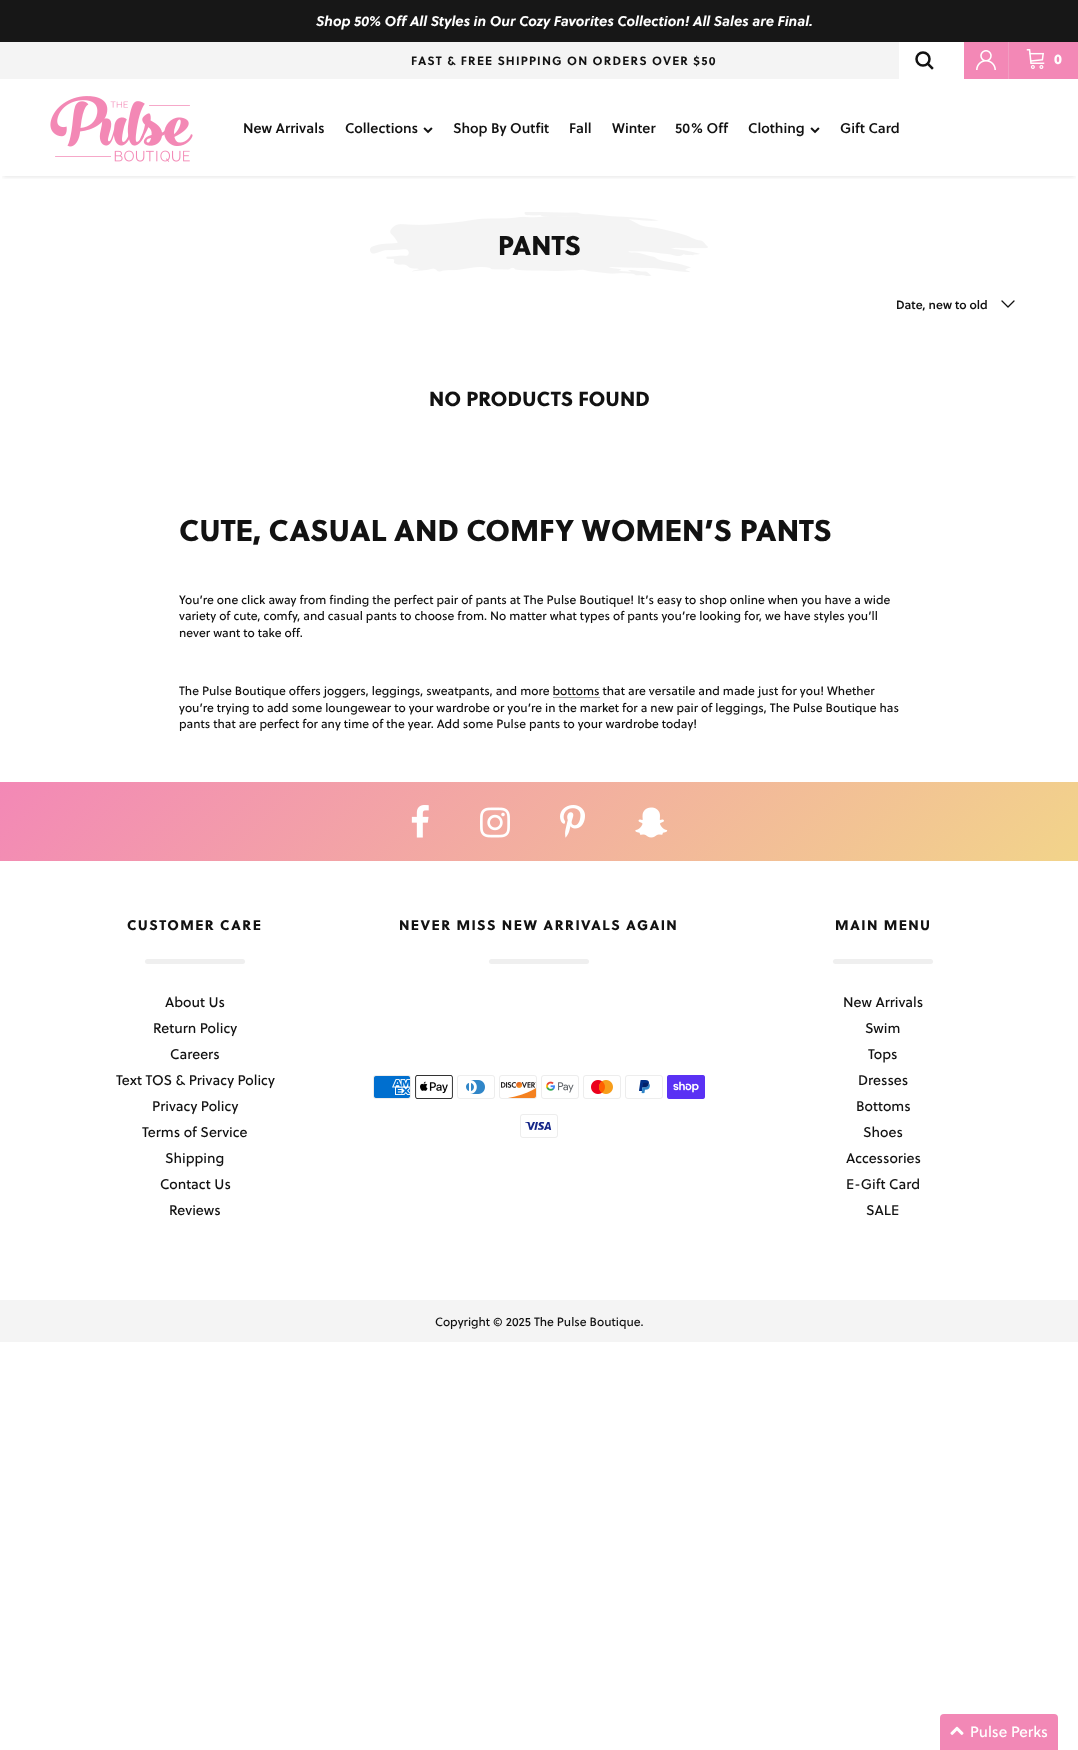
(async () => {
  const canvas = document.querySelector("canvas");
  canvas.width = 1078;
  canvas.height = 1750;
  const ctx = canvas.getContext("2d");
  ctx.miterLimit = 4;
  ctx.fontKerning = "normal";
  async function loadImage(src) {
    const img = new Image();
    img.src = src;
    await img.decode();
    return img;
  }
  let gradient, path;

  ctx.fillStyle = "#ffffff";
  ctx.fillRect(0, 0, 1078, 1750);
  ctx.fillStyle = "#171717";
  ctx.fillRect(0, 0, 1078, 42);
  ctx.save();
  ctx.beginPath();
  ctx.rect(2, 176, 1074, 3);
  ctx.clip();
  ctx.fillStyle = "rgba(0, 0, 0, 0.1)";
  ctx.filter = "blur(2px)";
  ctx.beginPath();
  ctx.rect(3, 49, 1072, 128);
  ctx.fill();
  ctx.filter = "none";
  ctx.restore();
  ctx.fillStyle = "#f4f4f4";
  ctx.fillRect(0, 42, 899, 37);
  ctx.beginPath();
  ctx.arc(923, 59, 6.5, 0, Math.PI * 2);
  ctx.strokeStyle = "#121212";
  ctx.lineWidth = 2.5;
  ctx.stroke();
  path = new Path2D("M928 64L932 68");
  ctx.lineCap = "square";
  ctx.stroke(path);
  ctx.fillStyle = "#f388b6";
  ctx.fillRect(964, 42, 44, 37);
  ctx.fillStyle = "#f29dc1";
  ctx.fillRect(1008, 42, 1, 37);
  ctx.drawImage(await loadImage("img/1.png"), 976, 50, 20, 20);
  ctx.fillStyle = "#f388b6";
  ctx.fillRect(1009, 42, 69, 37);
  ctx.drawImage(await loadImage("img/2.png"), 1026, 49, 19, 20);
  ctx.drawImage(await loadImage("img/3.png"), 50, 96, 143, 66);
  ctx.drawImage(await loadImage("img/4.png"), 423, 127, 10, 7);
  ctx.drawImage(await loadImage("img/4.png"), 810, 127, 10, 7);
  ctx.drawImage(await loadImage("img/5.png"), 370, 212, 338, 64);
  path = new Path2D("M1002 301L1008 307L1014 301");
  ctx.lineWidth = 1.3;
  ctx.lineCap = "round";
  ctx.lineJoin = "round";
  ctx.stroke(path);
  gradient = ctx.createLinearGradient(250, 532, 828, 1111);
  gradient.addColorStop(0, "#f388b6");
  gradient.addColorStop(1, "#f2d48a");
  ctx.fillStyle = gradient;
  ctx.fillRect(0, 782, 1078, 79);
  ctx.drawImage(await loadImage("img/6.png"), 411, 805, 18, 33);
  ctx.drawImage(await loadImage("img/7.png"), 480, 807, 30, 31);
  ctx.drawImage(await loadImage("img/8.png"), 560, 805, 25, 33);
  ctx.drawImage(await loadImage("img/9.png"), 635, 807, 33, 31);
  ctx.fillStyle = "#efefef";
  ctx.beginPath();
  ctx.roundRect(145, 959, 100, 5, 2.5);
  ctx.fill();
  ctx.beginPath();
  ctx.roundRect(489, 959, 100, 5, 2.5);
  ctx.fill();
  ctx.drawImage(await loadImage("img/10.png"), 373, 1075, 38, 24);
  ctx.drawImage(await loadImage("img/11.png"), 415, 1075, 38, 24);
  ctx.drawImage(await loadImage("img/12.png"), 457, 1075, 38, 24);
  ctx.drawImage(await loadImage("img/13.png"), 499, 1075, 38, 24);
  ctx.drawImage(await loadImage("img/14.png"), 541, 1075, 38, 24);
  ctx.drawImage(await loadImage("img/15.png"), 583, 1075, 38, 24);
  ctx.drawImage(await loadImage("img/16.png"), 625, 1075, 38, 24);
  ctx.drawImage(await loadImage("img/17.png"), 667, 1075, 38, 24);
  ctx.drawImage(await loadImage("img/18.png"), 520, 1114, 38, 24);
  ctx.beginPath();
  ctx.roundRect(833, 959, 100, 5, 2.5);
  ctx.fill();
  ctx.fillStyle = "#f4f4f4";
  ctx.fillRect(0, 1300, 1078, 42);
  ctx.fillStyle = "#f288b6";
  ctx.beginPath();
  ctx.roundRect(940, 1714, 118, 36, [4, 4, 0, 0]);
  ctx.fill();
  ctx.drawImage(await loadImage("img/19.png"), 950, 1726, 14, 9);
  ctx.font = "italic bold 14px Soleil";
  ctx.fillStyle = "#ffffff";
  ctx.fillText("Shop 50% Off All Styles in Our Cozy Favorites Collection! All Sales are Final.", 316, 26);
  ctx.letterSpacing = "1.2px";
  ctx.font = "bold 12px Soleil";
  ctx.fillStyle = "#121212";
  ctx.fillText("FAST & FREE SHIPPING ON ORDERS OVER $50", 411, 65);
  ctx.letterSpacing = "0px";
  ctx.font = "800 14px Soleil";
  ctx.fillStyle = "#ffffff";
  ctx.fillText("0", 1054, 64);
  ctx.font = "600 14px Soleil";
  ctx.fillStyle = "#121212";
  for (const [text, x, y] of [
    ["New Arrivals", 243, 133],
    ["Collections", 345, 133],
    ["Shop By Outfit", 453, 133],
    ["Fall", 569, 133],
    ["Winter", 612, 133],
    ["50% Off", 675, 133],
    ["Clothing", 748, 133],
    ["Gift Card", 840, 133],
  ]) {
    ctx.fillText(text, x, y);
  }
  ctx.font = "800 27px Soleil";
  ctx.fillText("PANTS", 498, 255);
  ctx.font = "600 12px Soleil";
  ctx.fillText("Date, new to old", 896, 309);
  ctx.font = "800 20.4px Soleil";
  ctx.fillText("NO PRODUCTS FOUND", 429, 406);
  ctx.font = "800 30px Soleil";
  ctx.fillText("CUTE, CASUAL AND COMFY WOMEN’S PANTS", 179, 541);
  ctx.font = "12px Soleil";
  for (const [text, x, y] of [
    ["You’re one click away from finding the perfect pair of pants at The Pulse Boutique! It’s easy to shop online when you have a wide", 179, 604],
    ["variety of cute, comfy, and casual pants to choose from. No matter what types of pants you’re looking for, we have styles you’ll", 179, 620],
    ["never want to take off.", 179, 637],
    ["The Pulse Boutique offers joggers, leggings, sweatpants, and more bottoms that are versatile and made just for you! Whether", 179, 695],
  ]) {
    ctx.fillText(text, x, y);
  }
  ctx.fillStyle = "#a0a0a0";
  ctx.fillRect(553, 697, 47, 1);
  ctx.fillStyle = "#121212";
  ctx.fillText("you’re trying to add some loungewear to your wardrobe or you’re in the market for a new pair of leggings, The Pulse Boutique has", 179, 712);
  ctx.fillText("pants that are perfect for any time of the year. Add some Pulse pants to your wardrobe today!", 179, 728);
  ctx.letterSpacing = "1.4px";
  ctx.font = "800 14px Soleil";
  ctx.fillText("CUSTOMER CARE", 127, 930);
  ctx.letterSpacing = "0px";
  ctx.font = "14px Soleil";
  for (const [text, x, y] of [
    ["About Us", 165, 1007],
    ["Return Policy", 153, 1033],
    ["Careers", 170, 1059],
    ["Text TOS & Privacy Policy", 116, 1085],
    ["Privacy Policy", 152, 1111],
    ["Terms of Service", 142, 1137],
    ["Shipping", 165, 1163],
    ["Contact Us", 160, 1189],
    ["Reviews", 169, 1215],
  ]) {
    ctx.fillText(text, x, y);
  }
  ctx.letterSpacing = "1.4px";
  ctx.font = "800 14px Soleil";
  ctx.fillText("NEVER MISS NEW ARRIVALS AGAIN", 399, 930);
  ctx.fillText("MAIN MENU", 835, 930);
  ctx.letterSpacing = "0px";
  ctx.font = "14px Soleil";
  for (const [text, x, y] of [
    ["New Arrivals", 843, 1007],
    ["Swim", 865, 1033],
    ["Tops", 868, 1059],
    ["Dresses", 858, 1085],
    ["Bottoms", 856, 1111],
    ["Shoes", 863, 1137],
    ["Accessories", 846, 1163],
    ["E-Gift Card", 846, 1189],
    ["SALE", 866, 1215],
  ]) {
    ctx.fillText(text, x, y);
  }
  ctx.font = "12px Soleil";
  ctx.fillText("Copyright © 2025 The Pulse Boutique.", 435, 1326);
  ctx.font = "15px Soleil";
  ctx.fillStyle = "#ffffff";
  ctx.fillText("Pulse Perks", 970, 1737);
})();
